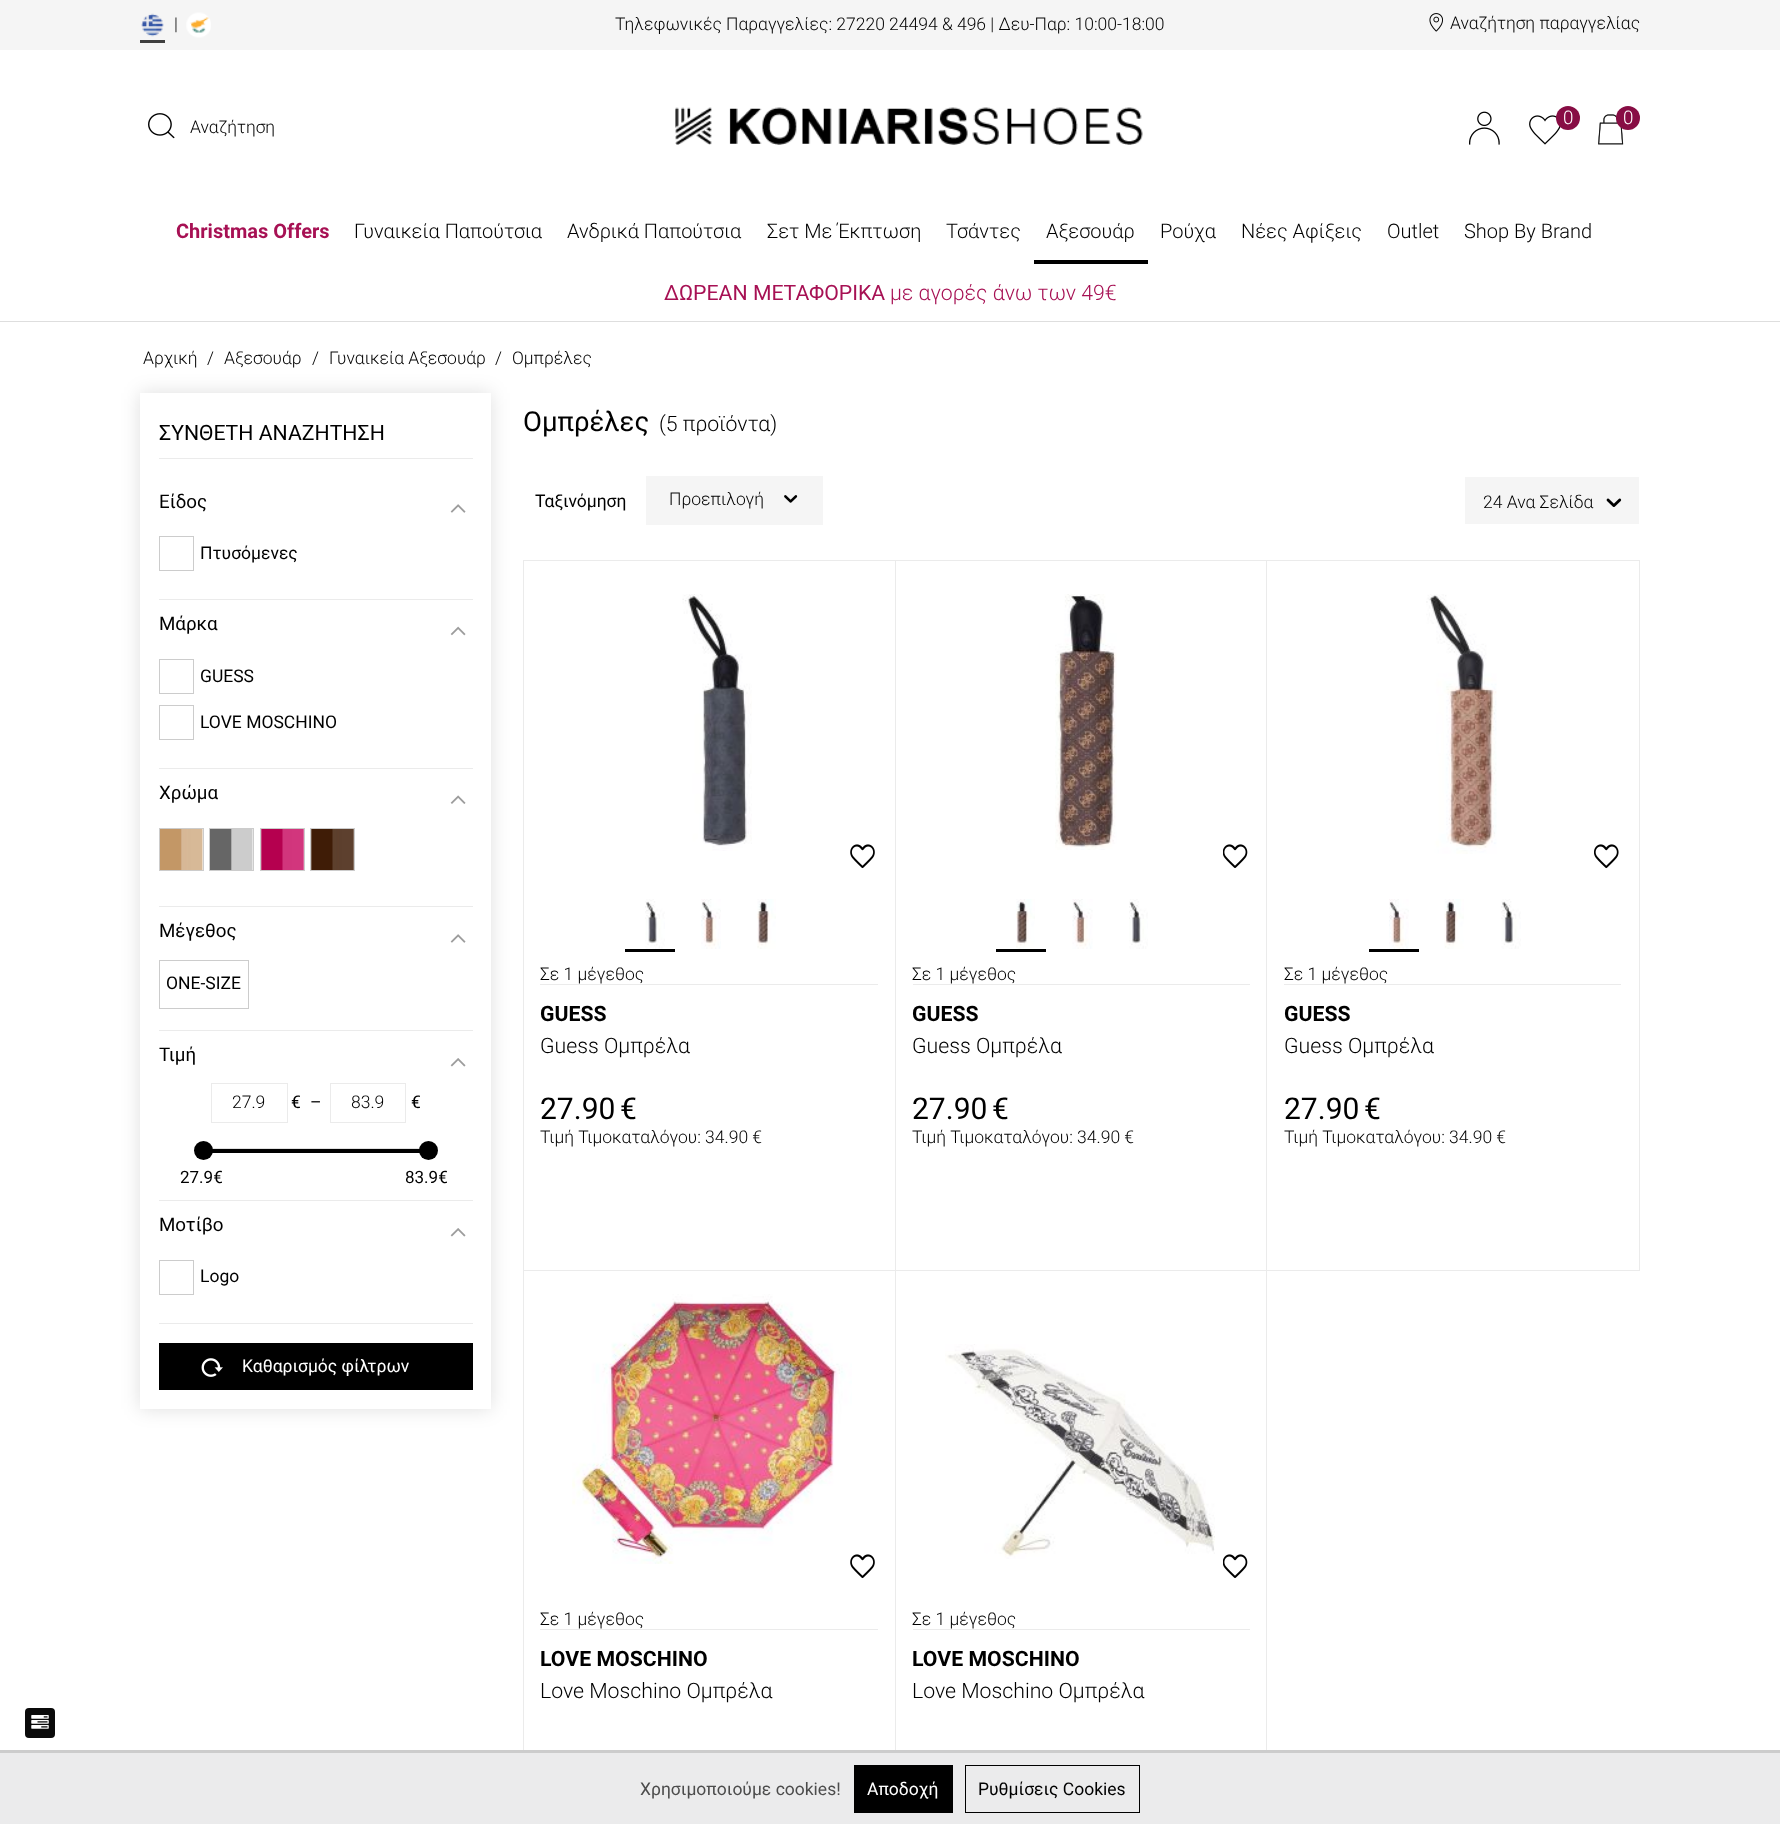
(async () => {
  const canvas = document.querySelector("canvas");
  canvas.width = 1780;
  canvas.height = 1824;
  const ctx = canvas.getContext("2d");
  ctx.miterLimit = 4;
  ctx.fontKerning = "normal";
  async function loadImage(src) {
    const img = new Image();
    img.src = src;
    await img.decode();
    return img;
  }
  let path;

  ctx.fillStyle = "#ffffff";
  ctx.fillRect(0, 0, 1780, 1824);
  ctx.fillStyle = "#f5f5f5";
  ctx.fillRect(0, 0, 1780, 50);
  ctx.drawImage(await loadImage("img/1.png"), 141, 13, 23, 24);
  ctx.drawImage(await loadImage("img/2.png"), 186, 12, 25, 26);
  ctx.fillStyle = "#3f3f3f";
  ctx.fillRect(140, 40, 25, 3);
  ctx.drawImage(await loadImage("img/3.png"), 1429, 13, 14, 19);
  ctx.drawImage(await loadImage("img/4.png"), 675, 107, 468, 38);
  ctx.drawImage(await loadImage("img/5.png"), 1469, 111, 31, 34);
  ctx.drawImage(await loadImage("img/6.png"), 1529, 115, 32, 30);
  ctx.fillStyle = "#870d44";
  ctx.beginPath();
  ctx.arc(1568, 118, 12, 0, Math.PI * 2);
  ctx.fill();
  ctx.drawImage(await loadImage("img/7.png"), 1598, 114, 26, 31);
  ctx.beginPath();
  ctx.arc(1628, 118, 12, 0, Math.PI * 2);
  ctx.fill();
  ctx.drawImage(await loadImage("img/8.png"), 148, 113, 27, 26);
  ctx.fillStyle = "#000000";
  ctx.fillRect(1034, 260, 114, 4);
  ctx.fillStyle = "#dedede";
  ctx.fillRect(0, 321, 1780, 1);
  ctx.save();
  path = new Path2D("M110 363H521V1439H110ZM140 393H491V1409H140Z");
  ctx.clip(path, "evenodd");
  ctx.fillStyle = "rgba(0, 0, 0, 0.13)";
  ctx.filter = "blur(9.5px)";
  ctx.beginPath();
  ctx.rect(140, 393, 351, 1016);
  ctx.fill();
  ctx.filter = "none";
  ctx.restore();
  ctx.fillStyle = "#ebebeb";
  ctx.fillRect(159, 458, 314, 1);
  ctx.fillRect(159, 599, 314, 1);
  ctx.drawImage(await loadImage("img/9.png"), 450, 504, 16, 9);
  ctx.strokeStyle = "#cccccc";
  ctx.strokeRect(159.5, 536.5, 34, 34);
  ctx.fillRect(159, 768, 314, 1);
  ctx.drawImage(await loadImage("img/10.png"), 450, 626, 16, 10);
  ctx.strokeRect(159.5, 659.5, 34, 34);
  ctx.strokeRect(159.5, 705.5, 34, 34);
  ctx.fillRect(159, 906, 314, 1);
  ctx.drawImage(await loadImage("img/11.png"), 450, 795, 16, 9);
  ctx.drawImage(await loadImage("img/12.png"), 160, 829, 43, 41);
  ctx.strokeRect(159.5, 828.5, 44, 42);
  ctx.drawImage(await loadImage("img/13.png"), 210, 829, 43, 41);
  ctx.strokeRect(209.5, 828.5, 44, 42);
  ctx.drawImage(await loadImage("img/14.png"), 261, 829, 43, 41);
  ctx.strokeRect(260.5, 828.5, 44, 42);
  ctx.drawImage(await loadImage("img/15.png"), 311, 829, 43, 41);
  ctx.strokeRect(310.5, 828.5, 44, 42);
  ctx.fillRect(159, 1030, 314, 1);
  ctx.drawImage(await loadImage("img/9.png"), 450, 934, 16, 9);
  ctx.strokeRect(159.5, 960.5, 89, 48);
  ctx.fillRect(159, 1200, 314, 1);
  ctx.drawImage(await loadImage("img/16.png"), 450, 1058, 16, 9);
  ctx.strokeStyle = "#ebebeb";
  ctx.strokeRect(211.5, 1083.5, 76, 39);
  ctx.strokeRect(330.5, 1083.5, 75, 39);
  ctx.fillStyle = "#e0e0e0";
  ctx.fillRect(212, 1148, 208, 1);
  ctx.fillStyle = "#000000";
  ctx.fillRect(204, 1149, 216, 4);
  ctx.beginPath();
  ctx.arc(203.5, 1150.5, 9.5, 0, Math.PI * 2);
  ctx.fill();
  ctx.beginPath();
  ctx.arc(428.5, 1150.5, 9.5, 0, Math.PI * 2);
  ctx.fill();
  ctx.fillStyle = "#ebebeb";
  ctx.fillRect(159, 1323, 314, 1);
  ctx.drawImage(await loadImage("img/16.png"), 450, 1228, 16, 9);
  ctx.strokeStyle = "#cccccc";
  ctx.strokeRect(159.5, 1260.5, 34, 34);
  ctx.fillStyle = "#000000";
  ctx.fillRect(159, 1343, 314, 47);
  ctx.drawImage(await loadImage("img/17.png"), 201, 1358, 22, 19);
  ctx.fillStyle = "#f5f5f5";
  ctx.fillRect(646, 476, 177, 49);
  ctx.drawImage(await loadImage("img/18.png"), 784, 495, 14, 8);
  ctx.fillRect(1465, 477, 174, 47);
  ctx.drawImage(await loadImage("img/19.png"), 1606, 498, 16, 9);
  for (const [x, y, w, h, color] of [
    [523, 560, 1117, 1, "#ebebeb"],
    [523, 560, 1, 1190, "#ebebeb"],
    [895, 561, 1, 1189, "#ebebeb"],
    [524, 1270, 372, 1, "#ebebeb"],
  ]) {
    ctx.fillStyle = color;
    ctx.fillRect(x, y, w, h);
  }
  ctx.drawImage(await loadImage("img/20.png"), 682, 594, 70, 257);
  ctx.drawImage(await loadImage("img/21.png"), 645, 899, 20, 50);
  ctx.fillStyle = "#000000";
  ctx.fillRect(625, 949, 50, 3);
  ctx.drawImage(await loadImage("img/22.png"), 701, 899, 20, 50);
  ctx.drawImage(await loadImage("img/23.png"), 757, 899, 19, 50);
  ctx.drawImage(await loadImage("img/24.png"), 850, 844, 25, 25);
  for (const [x, y, w, h, color] of [
    [540, 984, 338, 1, "#ebebeb"],
    [1266, 561, 1, 1189, "#ebebeb"],
    [896, 1270, 372, 1, "#ebebeb"],
  ]) {
    ctx.fillStyle = color;
    ctx.fillRect(x, y, w, h);
  }
  ctx.drawImage(await loadImage("img/25.png"), 1055, 594, 62, 256);
  ctx.drawImage(await loadImage("img/26.png"), 1016, 899, 19, 50);
  ctx.fillStyle = "#000000";
  ctx.fillRect(996, 949, 50, 3);
  ctx.drawImage(await loadImage("img/27.png"), 1072, 899, 21, 50);
  ctx.drawImage(await loadImage("img/28.png"), 1129, 899, 19, 50);
  ctx.drawImage(await loadImage("img/29.png"), 1223, 844, 25, 24);
  for (const [x, y, w, h, color] of [
    [913, 984, 337, 1, "#ebebeb"],
    [1639, 561, 1, 710, "#ebebeb"],
    [1268, 1270, 372, 1, "#ebebeb"],
  ]) {
    ctx.fillStyle = color;
    ctx.fillRect(x, y, w, h);
  }
  ctx.drawImage(await loadImage("img/30.png"), 1426, 594, 71, 260);
  ctx.drawImage(await loadImage("img/31.png"), 1389, 899, 20, 50);
  ctx.fillStyle = "#000000";
  ctx.fillRect(1369, 949, 50, 3);
  ctx.drawImage(await loadImage("img/32.png"), 1444, 899, 20, 50);
  ctx.drawImage(await loadImage("img/33.png"), 1501, 899, 20, 50);
  ctx.drawImage(await loadImage("img/34.png"), 1594, 844, 25, 25);
  ctx.fillStyle = "#ebebeb";
  ctx.fillRect(1284, 984, 337, 1);
  ctx.drawImage(await loadImage("img/35.png"), 572, 1294, 280, 270);
  ctx.drawImage(await loadImage("img/24.png"), 850, 1554, 25, 25);
  ctx.fillRect(540, 1629, 338, 1);
  ctx.drawImage(await loadImage("img/36.png"), 945, 1344, 270, 215);
  ctx.drawImage(await loadImage("img/29.png"), 1223, 1554, 25, 24);
  ctx.fillRect(913, 1629, 337, 1);
  ctx.fillStyle = "#0a0a0a";
  ctx.beginPath();
  ctx.roundRect(25, 1708, 30, 30, 4);
  ctx.fill();
  ctx.drawImage(await loadImage("img/37.png"), 31, 1715, 18, 14);
  for (const [x, y, w, h, color] of [
    [0, 1753, 1780, 71, "#ebebec"],
    [0, 1750, 1780, 3, "#cccccc"],
    [854, 1765, 99, 48, "#000000"],
  ]) {
    ctx.fillStyle = color;
    ctx.fillRect(x, y, w, h);
  }
  ctx.strokeStyle = "#000000";
  ctx.strokeRect(965.5, 1765.5, 174, 47);
  ctx.font = "300 17.5px Roboto";
  for (const [text, x, y] of [
    ["|", 174, 30],
    ["Τηλεφωνικές Παραγγελίες: 27220 24494 & 496 | Δευ-Παρ: 10:00-18:00", 615, 30],
    ["Αναζήτηση παραγγελίας", 1450, 29],
  ]) {
    ctx.fillText(text, x, y);
  }
  ctx.font = "300 18.75px Roboto";
  ctx.fillStyle = "#ffffff";
  ctx.fillText("0", 1563, 124);
  ctx.fillText("0", 1623, 124);
  ctx.font = "300 17.5px Roboto";
  ctx.fillStyle = "#000000";
  ctx.fillText("Αναζήτηση", 190, 133);
  ctx.font = "bold 20px Roboto";
  ctx.fillStyle = "#a71154";
  ctx.fillText("Christmas Offers", 176, 238);
  ctx.font = "300 20px Roboto";
  ctx.fillStyle = "#000000";
  for (const [text, x, y] of [
    ["Γυναικεία Παπούτσια", 354, 238],
    ["Ανδρικά Παπούτσια", 567, 238],
    ["Σετ Με Έκπτωση", 767, 238],
    ["Τσάντες", 946, 238],
    ["Αξεσουάρ", 1046, 238],
    ["Ρούχα", 1160, 238],
    ["Νέες Αφίξεις", 1241, 238],
    ["Outlet", 1387, 238],
    ["Shop By Brand", 1464, 238],
  ]) {
    ctx.fillText(text, x, y);
  }
  ctx.font = "21.25px Roboto";
  ctx.fillStyle = "#a71154";
  ctx.fillText("ΔΩΡΕΑΝ ΜΕΤΑΦΟΡΙΚΑ", 664, 300);
  ctx.font = "300 21.25px Roboto";
  ctx.fillText("με αγορές άνω των 49€", 890, 300);
  ctx.font = "300 17.5px Roboto";
  ctx.fillStyle = "#000000";
  for (const [text, x, y] of [
    ["Αρχική", 143, 364],
    ["/", 207, 364],
    ["Αξεσουάρ", 224, 364],
    ["/", 312, 364],
    ["Γυναικεία Αξεσουάρ", 329, 364],
    ["/", 495, 364],
    ["Ομπρέλες", 512, 364],
  ]) {
    ctx.fillText(text, x, y);
  }
  ctx.font = "21.25px Roboto";
  ctx.fillText("ΣΥΝΘΕΤΗ ΑΝΑΖΗΤΗΣΗ", 159, 440);
  ctx.font = "18.75px Roboto";
  ctx.fillText("Είδος", 159, 508);
  ctx.font = "17.5px Roboto";
  ctx.fillText("Πτυσόμενες", 200, 559);
  ctx.font = "18.75px Roboto";
  ctx.fillText("Μάρκα", 159, 630);
  ctx.font = "17.5px Roboto";
  ctx.fillText("GUESS", 200, 682);
  ctx.fillText("LOVE MOSCHINO", 200, 728);
  ctx.font = "18.75px Roboto";
  ctx.fillText("Χρώμα", 159, 799);
  ctx.fillText("Μέγεθος", 159, 937);
  ctx.font = "17.5px Roboto";
  ctx.fillText("ONE-SIZE", 166, 989);
  ctx.font = "18.75px Roboto";
  ctx.fillText("Τιμή", 159, 1061);
  ctx.font = "300 17.5px Roboto";
  ctx.fillText("27.9", 232, 1108);
  ctx.font = "17.5px Roboto";
  ctx.fillText("€", 291, 1108);
  ctx.fillText("–", 310, 1108);
  ctx.font = "300 17.5px Roboto";
  ctx.fillText("83.9", 351, 1108);
  ctx.font = "17.5px Roboto";
  ctx.fillText("€", 411, 1108);
  ctx.font = "17px Roboto";
  ctx.fillText("27.9€", 180, 1183);
  ctx.fillText("83.9€", 405, 1183);
  ctx.font = "18.75px Roboto";
  ctx.fillText("Μοτίβο", 159, 1231);
  ctx.font = "17.5px Roboto";
  ctx.fillText("Logo", 200, 1282);
  ctx.fillStyle = "#ffffff";
  ctx.fillText("Καθαρισμός φίλτρων", 242, 1372);
  ctx.font = "27.5px Roboto";
  ctx.fillStyle = "#000000";
  ctx.fillText("Ομπρέλες", 523, 431);
  ctx.font = "300 21.25px Roboto";
  ctx.fillText("(5 προϊόντα)", 659, 431);
  ctx.font = "17.5px Roboto";
  ctx.fillText("Ταξινόμηση", 535, 507);
  ctx.font = "300 17.5px Roboto";
  for (const [text, x, y] of [
    ["Προεπιλογή", 669, 505],
    ["24 Ανα Σελίδα", 1483, 508],
    ["Σε 1 μέγεθος", 540, 980],
  ]) {
    ctx.fillText(text, x, y);
  }
  ctx.font = "bold 21.25px Roboto";
  ctx.fillText("GUESS", 540, 1021);
  ctx.font = "300 21.25px Roboto";
  ctx.fillText("Guess Ομπρέλα", 540, 1053);
  ctx.font = "30px Roboto";
  ctx.fillText("27.90", 540, 1119);
  ctx.fillText("€", 620, 1119);
  ctx.font = "300 17.5px Roboto";
  ctx.fillText("Τιμή Τιμοκαταλόγου: 34.90 €", 540, 1143);
  ctx.fillText("Σε 1 μέγεθος", 912, 980);
  ctx.font = "bold 21.25px Roboto";
  ctx.fillText("GUESS", 912, 1021);
  ctx.font = "300 21.25px Roboto";
  ctx.fillText("Guess Ομπρέλα", 912, 1053);
  ctx.font = "30px Roboto";
  ctx.fillText("27.90", 912, 1119);
  ctx.fillText("€", 992, 1119);
  ctx.font = "300 17.5px Roboto";
  ctx.fillText("Τιμή Τιμοκαταλόγου: 34.90 €", 912, 1143);
  ctx.fillText("Σε 1 μέγεθος", 1284, 980);
  ctx.font = "bold 21.25px Roboto";
  ctx.fillText("GUESS", 1284, 1021);
  ctx.font = "300 21.25px Roboto";
  ctx.fillText("Guess Ομπρέλα", 1284, 1053);
  ctx.font = "30px Roboto";
  ctx.fillText("27.90", 1284, 1119);
  ctx.fillText("€", 1364, 1119);
  ctx.font = "300 17.5px Roboto";
  ctx.fillText("Τιμή Τιμοκαταλόγου: 34.90 €", 1284, 1143);
  ctx.fillText("Σε 1 μέγεθος", 540, 1625);
  ctx.font = "bold 21.25px Roboto";
  ctx.fillText("LOVE MOSCHINO", 540, 1666);
  ctx.font = "300 21.25px Roboto";
  ctx.fillText("Love Moschino Ομπρέλα", 540, 1698);
  ctx.font = "300 17.5px Roboto";
  ctx.fillText("Σε 1 μέγεθος", 912, 1625);
  ctx.font = "bold 21.25px Roboto";
  ctx.fillText("LOVE MOSCHINO", 912, 1666);
  ctx.font = "300 21.25px Roboto";
  ctx.fillText("Love Moschino Ομπρέλα", 912, 1698);
  ctx.font = "17.5px Roboto";
  ctx.fillStyle = "#4c4c4c";
  ctx.fillText("Χρησιμοποιούμε cookies!", 640, 1795);
  ctx.fillStyle = "#ffffff";
  ctx.fillText("Αποδοχή", 867, 1795);
  ctx.fillStyle = "#000000";
  ctx.fillText("Ρυθμίσεις Cookies", 978, 1795);
})();
